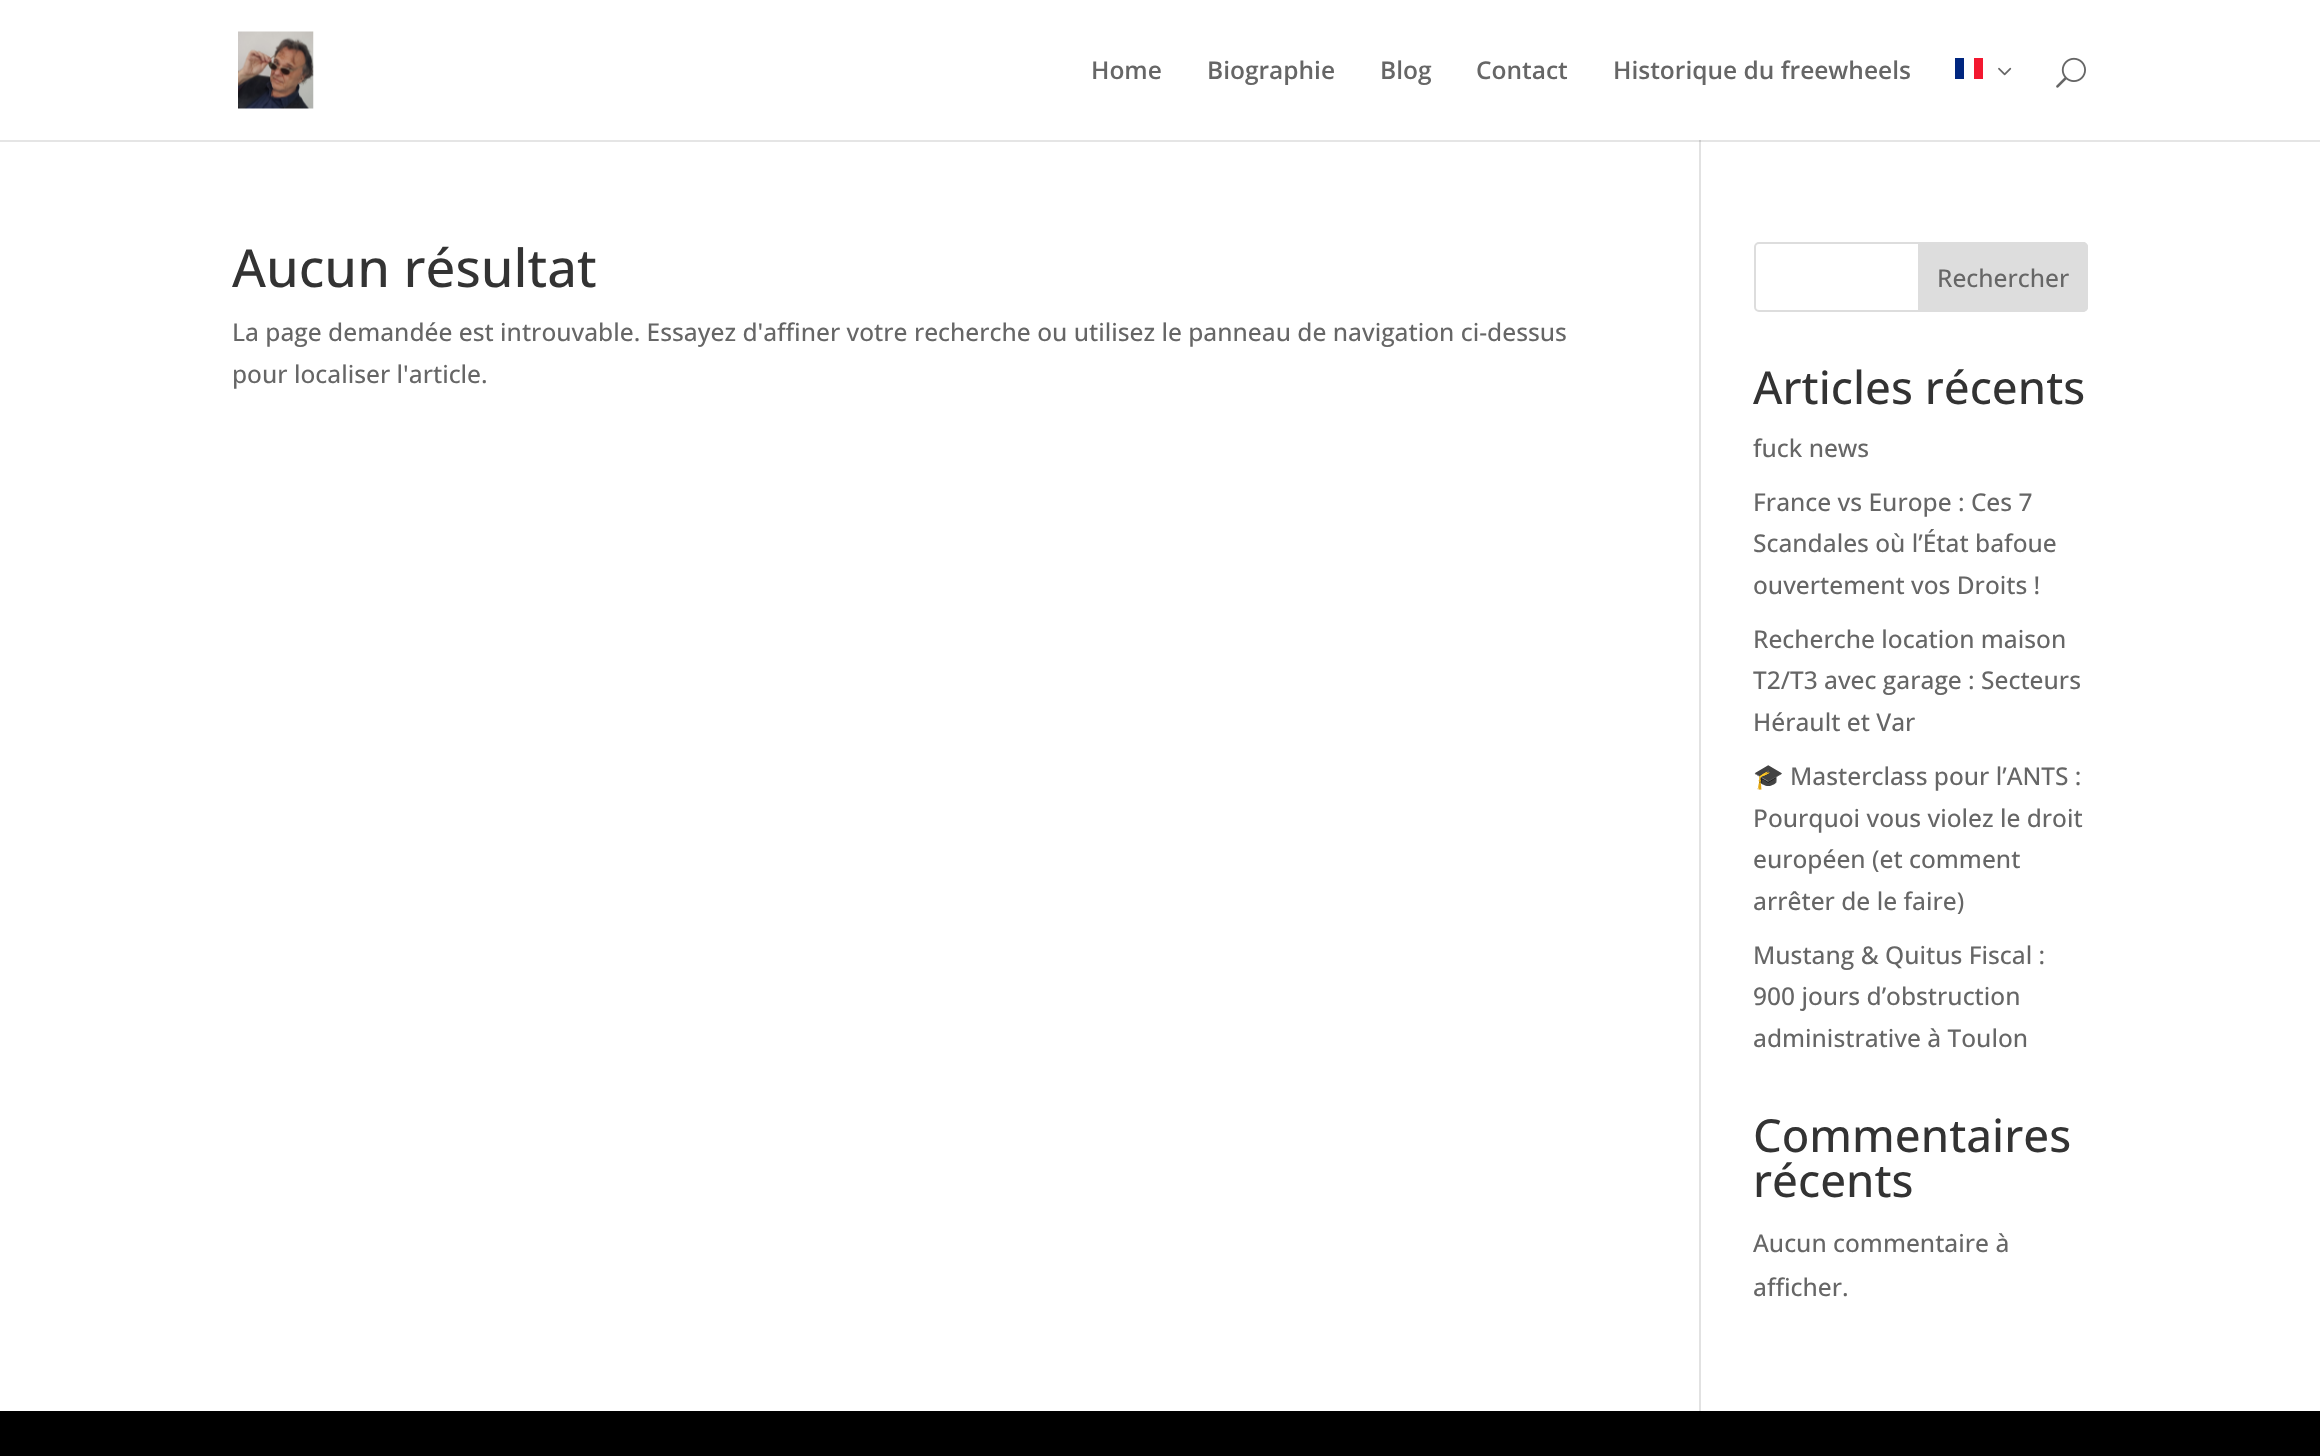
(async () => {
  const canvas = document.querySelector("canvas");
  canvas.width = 2320;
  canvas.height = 1456;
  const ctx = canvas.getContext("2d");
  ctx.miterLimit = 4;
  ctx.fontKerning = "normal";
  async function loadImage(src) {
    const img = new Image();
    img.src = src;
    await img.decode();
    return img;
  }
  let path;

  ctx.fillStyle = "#ffffff";
  ctx.fillRect(0, 0, 2320, 1456);
  ctx.fillStyle = "#e2e2e2";
  ctx.fillRect(1699, 140, 2, 1271);
  ctx.fillStyle = "rgba(0, 0, 0, 0.1)";
  path = new Path2D("M0 140V142H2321V2H2320V140Z");
  ctx.fill(path);
  ctx.drawImage(await loadImage("img/1.png"), 238, 31, 76, 78);
  ctx.fillStyle = "#00267f";
  ctx.fillRect(1955, 58, 9, 21);
  ctx.fillStyle = "#f31830";
  ctx.fillRect(1974, 58, 9, 21);
  ctx.drawImage(await loadImage("img/2.png"), 1998, 67, 14, 9);
  ctx.drawImage(await loadImage("img/3.png"), 2056, 57, 30, 31);
  ctx.beginPath();
  ctx.roundRect(1755, 243, 332, 68, 4);
  ctx.strokeStyle = "#dddddd";
  ctx.lineWidth = 2;
  ctx.stroke();
  ctx.fillStyle = "#dddddd";
  ctx.beginPath();
  ctx.roundRect(1919, 243, 168, 68, [0, 4, 4, 0]);
  ctx.fill();
  ctx.stroke();
  ctx.fillStyle = "#000000";
  ctx.fillRect(0, 1411, 2320, 45);
  ctx.font = "600 24.5px Open Sans";
  ctx.fillStyle = "#666666";
  for (const [text, x, y] of [
    ["Home", 1091, 79],
    ["Biographie", 1207, 79],
    ["Blog", 1380, 79],
    ["Contact", 1476, 79],
    ["Historique du freewheels", 1613, 79],
  ]) {
    ctx.fillText(text, x, y);
  }
  ctx.font = "500 52.5px Open Sans";
  ctx.fillStyle = "#333333";
  ctx.fillText("Aucun résultat", 232, 287);
  ctx.font = "500 24.5px Open Sans";
  ctx.fillStyle = "#666666";
  for (const [text, x, y] of [
    ["La page demandée est introuvable. Essayez d'affiner votre recherche ou utilisez le panneau de navigation ci-dessus", 232, 341],
    ["pour localiser l'article.", 232, 383],
    ["Rechercher", 1937, 287],
  ]) {
    ctx.fillText(text, x, y);
  }
  ctx.font = "500 45.5px Open Sans";
  ctx.fillStyle = "#333333";
  ctx.fillText("Articles récents", 1753, 404);
  ctx.font = "500 24.5px Open Sans";
  ctx.fillStyle = "#666666";
  for (const [text, x, y] of [
    ["fuck news", 1753, 457],
    ["France vs Europe : Ces 7", 1753, 511],
    ["Scandales où l’État bafoue", 1753, 552],
    ["ouvertement vos Droits !", 1753, 594],
    ["Recherche location maison", 1753, 648],
    ["T2/T3 avec garage : Secteurs", 1753, 689],
    ["Hérault et Var", 1753, 731],
  ]) {
    ctx.fillText(text, x, y);
  }
  ctx.font = "24.5px Noto Color Emoji";
  ctx.fillText("🎓", 1753, 785);
  ctx.font = "500 24.5px Open Sans";
  for (const [text, x, y] of [
    ["Masterclass pour l’ANTS :", 1790, 785],
    ["Pourquoi vous violez le droit", 1753, 827],
    ["européen (et comment", 1753, 868],
    ["arrêter de le faire)", 1753, 910],
    ["Mustang & Quitus Fiscal :", 1753, 964],
    ["900 jours d’obstruction", 1753, 1005],
    ["administrative à Toulon", 1753, 1047],
  ]) {
    ctx.fillText(text, x, y);
  }
  ctx.font = "500 45.5px Open Sans";
  ctx.fillStyle = "#333333";
  ctx.fillText("Commentaires", 1753, 1152);
  ctx.fillText("récents", 1753, 1197);
  ctx.font = "500 24.5px Open Sans";
  ctx.fillStyle = "#666666";
  ctx.fillText("Aucun commentaire à", 1753, 1252);
  ctx.fillText("afficher.", 1753, 1296);
})();
